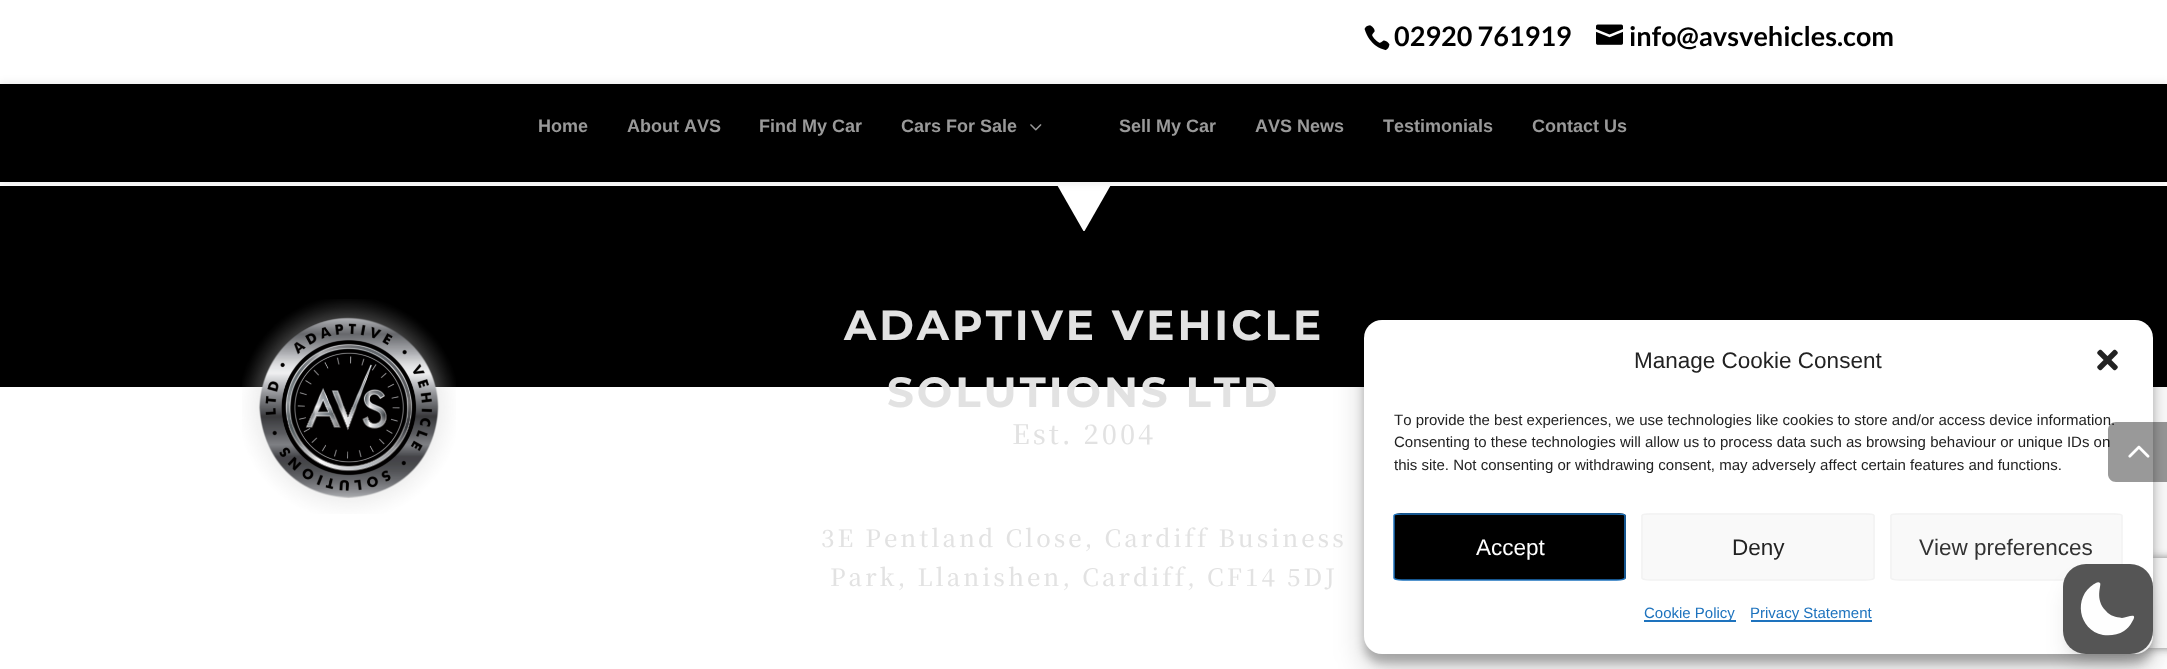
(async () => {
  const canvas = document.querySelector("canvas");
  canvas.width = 2167;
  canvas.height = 669;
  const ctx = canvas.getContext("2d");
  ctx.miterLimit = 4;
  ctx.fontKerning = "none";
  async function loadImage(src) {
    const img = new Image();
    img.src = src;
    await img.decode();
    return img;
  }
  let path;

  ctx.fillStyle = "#ffffff";
  ctx.fillRect(0, 0, 2167, 669);
  ctx.drawImage(await loadImage("img/1.png"), 1364, 25, 26, 26);
  ctx.drawImage(await loadImage("img/2.png"), 1596, 24, 27, 21);
  ctx.fillStyle = "#000000";
  ctx.fillRect(0, 186, 2167, 201);
  ctx.save();
  ctx.beginPath();
  ctx.rect(0, 186, 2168, 45);
  ctx.clip();
  ctx.fillStyle = "#ffffff";
  path = new Path2D("M1084 232L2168-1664H0Z");
  ctx.fill(path);
  ctx.restore();
  ctx.fillStyle = "rgba(0, 0, 0, 0.1)";
  ctx.filter = "blur(5px)";
  ctx.beginPath();
  ctx.rect(0, 84, 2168, 98);
  ctx.fill();
  ctx.filter = "none";
  ctx.fillStyle = "#000000";
  ctx.fillRect(0, 84, 2167, 98);
  ctx.drawImage(await loadImage("img/3.png"), 1030, 124, 12, 7);
  ctx.drawImage(await loadImage("img/4.png"), 242, 299, 214, 215);
  ctx.fillStyle = "rgba(0, 0, 0, 0.23)";
  ctx.filter = "blur(4.5px)";
  ctx.beginPath();
  ctx.roundRect(1364, 329, 789, 334, 18);
  ctx.fill();
  ctx.filter = "none";
  ctx.fillStyle = "rgba(0, 0, 0, 0.19)";
  ctx.filter = "blur(15px)";
  ctx.beginPath();
  ctx.roundRect(1364, 335, 789, 334, 18);
  ctx.fill();
  ctx.filter = "none";
  ctx.save();
  path = new Path2D("M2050 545H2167V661H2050ZM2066 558H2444C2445.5 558 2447 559.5 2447 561V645C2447 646.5 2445.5 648 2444 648H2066C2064.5 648 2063 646.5 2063 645V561C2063 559.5 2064.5 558 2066 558Z");
  ctx.clip(path, "evenodd");
  ctx.fillStyle = "#808080";
  ctx.filter = "blur(4px)";
  ctx.beginPath();
  ctx.roundRect(2063, 558, 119, 90, 3);
  ctx.fill();
  ctx.filter = "none";
  ctx.restore();
  ctx.fillStyle = "#ffffff";
  ctx.beginPath();
  ctx.roundRect(1364, 320, 789, 334, 18);
  ctx.fill();
  ctx.drawImage(await loadImage("img/5.png"), 2097, 349, 21, 22);
  ctx.fillStyle = "#000000";
  path = new Path2D("M1403 513H1617C1622 513 1626 514 1626 516V578C1626 579 1622 580 1617 580H1403C1398 580 1394 579 1394 578V516C1394 514 1398 513 1403 513Z");
  ctx.fill(path);
  path = new Path2D("M1403 514H1616.5C1621.5 514 1625 514.5 1625 515.5V578C1625 579 1621.5 580 1616.5 580H1403C1398 580 1394 579 1394 578V515.5C1394 514.5 1398 514 1403 514Z");
  ctx.strokeStyle = "#1e73be";
  ctx.lineWidth = 1.5;
  ctx.stroke(path);
  ctx.fillStyle = "#f9f9f9";
  path = new Path2D("M1650 513H1866C1871 513 1875 514 1875 516V578C1875 579 1871 580 1866 580H1650C1645 580 1641 579 1641 578V516C1641 514 1645 513 1650 513Z");
  ctx.fill(path);
  path = new Path2D("M1650.5 514H1865.5C1870.5 514 1874 514.5 1874 515.5V578C1874 579 1870.5 580 1865.5 580H1650.5C1645.5 580 1642 579 1642 578V515.5C1642 514.5 1645.5 514 1650.5 514Z");
  ctx.strokeStyle = "#f2f2f2";
  ctx.stroke(path);
  path = new Path2D("M1899 513H2113C2118 513 2122 514 2122 516V578C2122 579 2118 580 2113 580H1899C1894 580 1890 579 1890 578V516C1890 514 1894 513 1899 513Z");
  ctx.fill(path);
  path = new Path2D("M1899.5 514H2113C2118 514 2122 514.5 2122 515.5V578C2122 579 2118 580 2113 580H1899.5C1894.5 580 1891 579 1891 578V515.5C1891 514.5 1894.5 514 1899.5 514Z");
  ctx.stroke(path);
  ctx.fillStyle = "#1e73be";
  ctx.fillRect(1644, 620, 92, 2);
  ctx.fillRect(1751, 620, 121, 2);
  ctx.fillStyle = "rgba(0, 0, 0, 0.1)";
  ctx.filter = "blur(4.5px)";
  ctx.beginPath();
  ctx.roundRect(2069, 576, 78, 78, 17);
  ctx.fill();
  ctx.filter = "none";
  ctx.filter = "blur(11px)";
  ctx.beginPath();
  ctx.roundRect(2067, 584, 81, 81, 18);
  ctx.fill();
  ctx.filter = "none";
  ctx.fillStyle = "#555555";
  ctx.beginPath();
  ctx.roundRect(2063, 564, 90, 90, 23);
  ctx.fill();
  ctx.fillStyle = "#fefefe";
  path = new Path2D("M2100 583C2102 585 2094 599 2106 611C2110 616 2116 617 2122 618C2127 618 2139 611 2132 622C2130 626 2127 629 2124 631C2118 635 2110 636 2103 635C2078 630 2073 597 2094 584C2095 584 2098 581 2100 583Z");
  ctx.fill(path, "evenodd");
  ctx.font = "bold 27px Lato";
  ctx.fillStyle = "#000000";
  ctx.fillText("02920 761919", 1394, 46);
  ctx.fillText("info@avsvehicles.com", 1629, 46);
  ctx.font = "bold 18px Liberation Sans";
  ctx.fillStyle = "#999999";
  for (const [text, x, y] of [
    ["Home", 538, 132],
    ["About AVS", 627, 132],
    ["Find My Car", 759, 132],
    ["Cars For Sale", 901, 132],
    ["Sell My Car", 1119, 132],
    ["AVS News", 1255, 132],
    ["Testimonials", 1383, 132],
    ["Contact Us", 1532, 132],
  ]) {
    ctx.fillText(text, x, y);
  }
  ctx.letterSpacing = "3px";
  ctx.font = "100 42px Montserrat";
  ctx.fillStyle = "#e2e2e2";
  ctx.fillText("ADAPTIVE VEHICLE", 844, 340);
  ctx.fillText("SOLUTIONS LTD", 887, 407);
  ctx.font = "200 27px Noto Serif JP";
  ctx.fillText("Est. 2004", 1012, 444);
  ctx.font = "200 24px Noto Serif JP";
  ctx.fillText("3E Pentland Close, Cardiff Business", 821, 547);
  ctx.fillText("Park, Llanishen, Cardiff, CF14 5DJ", 830, 586);
  ctx.letterSpacing = "0px";
  ctx.font = "22.5px Liberation Sans";
  ctx.fillStyle = "#222222";
  ctx.fillText("Manage Cookie Consent", 1634, 368);
  ctx.font = "15px Liberation Sans";
  for (const [text, x, y] of [
    ["To provide the best experiences, we use technologies like cookies to store and/or access device information.", 1394, 425],
    ["Consenting to these technologies will allow us to process data such as browsing behaviour or unique IDs on", 1394, 447],
    ["this site. Not consenting or withdrawing consent, may adversely affect certain features and functions.", 1394, 470],
  ]) {
    ctx.fillText(text, x, y);
  }
  ctx.font = "22.5px Liberation Sans";
  ctx.fillStyle = "#ffffff";
  ctx.fillText("Accept", 1476, 555);
  ctx.fillStyle = "#222222";
  ctx.fillText("Deny", 1732, 555);
  ctx.fillStyle = "#333333";
  ctx.fillText("View preferences", 1919, 555);
  ctx.font = "15px Liberation Sans";
  ctx.fillStyle = "#1e73be";
  ctx.fillText("Cookie Policy", 1644, 618);
  ctx.fillText("Privacy Statement", 1750, 618);
  ctx.fillStyle = "rgba(0, 0, 0, 0.4)";
  path = new Path2D("M2116 422H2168V482H2116C2111.5 482 2108 478.5 2108 474V430C2108 425.5 2111.5 422 2116 422Z");
  ctx.fill(path);
  ctx.drawImage(await loadImage("img/6.png"), 2128, 445, 22, 13);
})();
